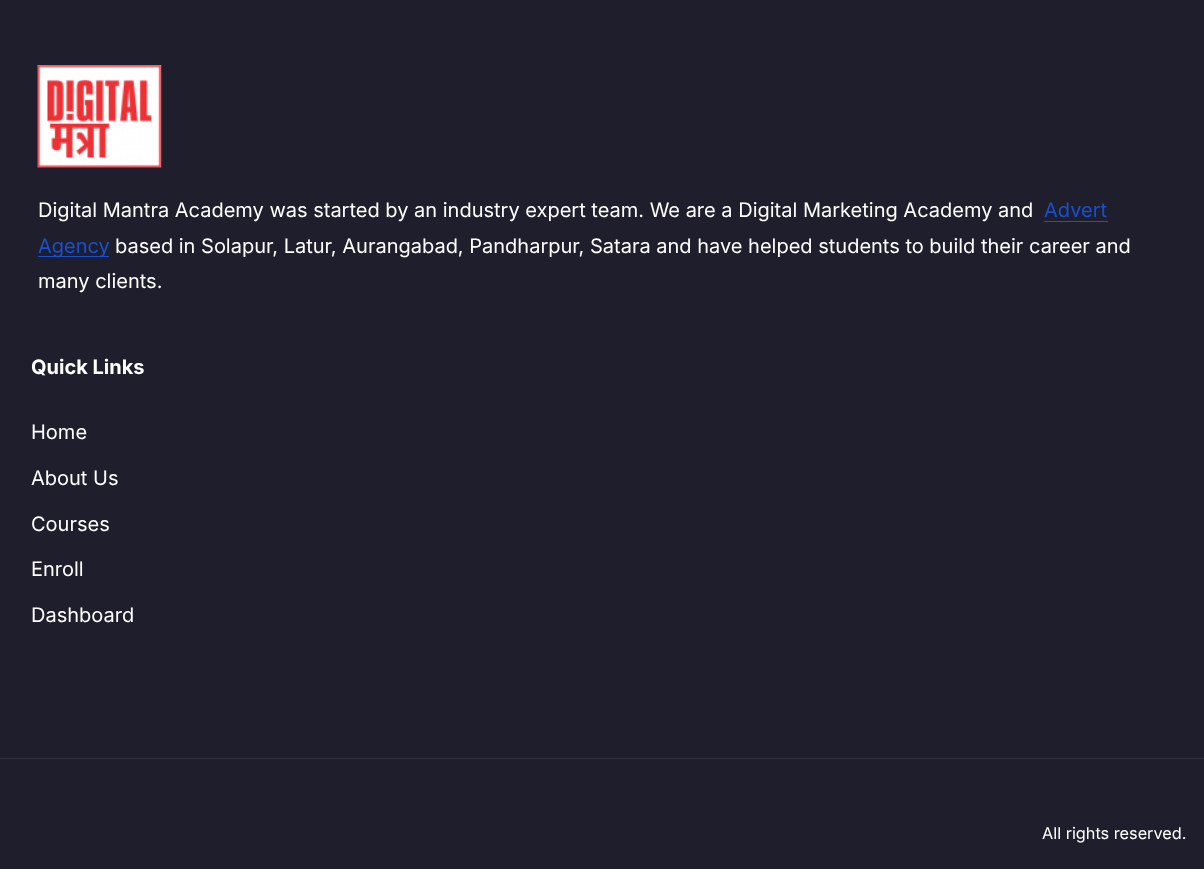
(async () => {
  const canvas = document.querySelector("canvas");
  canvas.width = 1204;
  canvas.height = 869;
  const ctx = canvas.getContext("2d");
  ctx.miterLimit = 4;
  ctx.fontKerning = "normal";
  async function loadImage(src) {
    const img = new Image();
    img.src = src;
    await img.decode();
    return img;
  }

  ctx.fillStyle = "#1e1e2c";
  ctx.fillRect(0, 0, 1204, 869);
  ctx.fillStyle = "#30303d";
  ctx.fillRect(0, 758, 1204, 1);
  ctx.drawImage(await loadImage("img/1.png"), 37, 65, 125, 103);
  ctx.fillStyle = "#1950d1";
  ctx.fillRect(1044, 221, 64, 1);
  ctx.fillRect(38, 256, 71, 1);
  ctx.font = "20px Inter";
  ctx.fillStyle = "#ffffff";
  ctx.fillText("Digital Mantra Academy was started by an industry expert team. We are a Digital Marketing Academy and", 38, 217);
  ctx.fillStyle = "#1950d1";
  ctx.fillText("Advert", 1044, 217);
  ctx.fillText("Agency", 38, 253);
  ctx.fillStyle = "#ffffff";
  ctx.fillText("based in Solapur, Latur, Aurangabad, Pandharpur, Satara and have helped students to build their career and", 115, 253);
  ctx.fillText("many clients.", 38, 288);
  ctx.font = "bold 20px Inter";
  ctx.fillText("Quick Links", 31, 374);
  ctx.font = "20px Inter";
  for (const [text, x, y] of [
    ["Home", 31, 439],
    ["About Us", 31, 485],
    ["Courses", 31, 531],
    ["Enroll", 31, 576],
    ["Dashboard", 31, 622],
  ]) {
    ctx.fillText(text, x, y);
  }
  ctx.font = "16.25px Inter";
  ctx.fillText("All rights reserved.", 1042, 839);
})();
